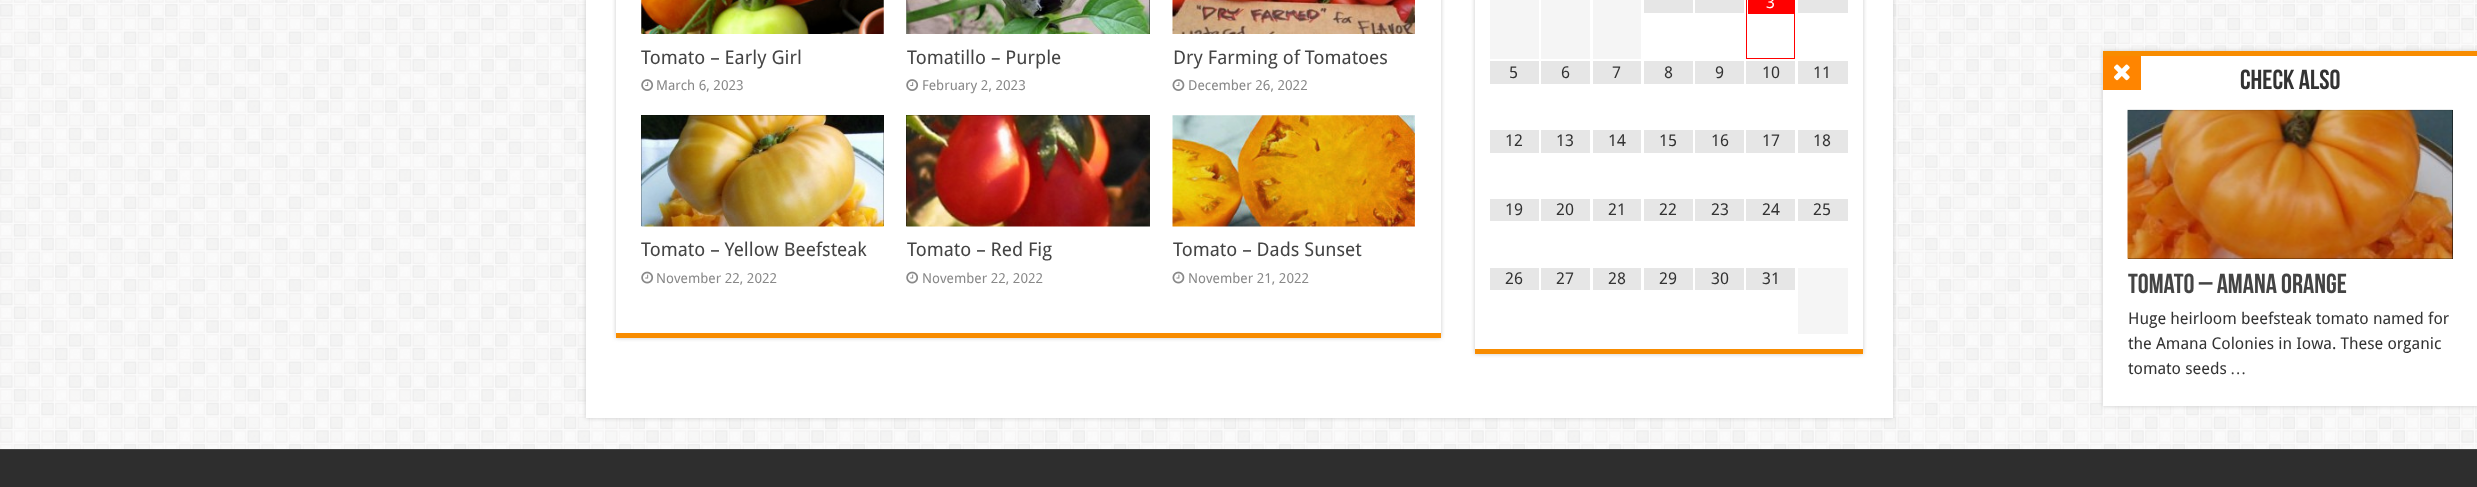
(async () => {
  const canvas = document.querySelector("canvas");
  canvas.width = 2477;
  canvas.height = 487;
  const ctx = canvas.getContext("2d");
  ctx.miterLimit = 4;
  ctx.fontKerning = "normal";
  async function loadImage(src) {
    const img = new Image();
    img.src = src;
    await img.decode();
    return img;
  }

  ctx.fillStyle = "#ffffff";
  ctx.fillRect(0, 0, 2477, 487);
  ctx.drawImage(await loadImage("img/1.png"), 0, 0, 2477, 449);
  ctx.fillStyle = "#cacaca";
  ctx.filter = "blur(2px)";
  ctx.beginPath();
  ctx.rect(586, -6, 1307, 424);
  ctx.fill();
  ctx.filter = "none";
  ctx.fillStyle = "#ffffff";
  ctx.fillRect(586, 0, 1307, 418);
  ctx.fillStyle = "#cacaca";
  ctx.filter = "blur(2px)";
  ctx.beginPath();
  ctx.rect(1475, -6, 388, 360);
  ctx.fill();
  ctx.filter = "none";
  for (const [x, y, w, h, color] of [
    [1475, 0, 388, 349, "#ffffff"],
    [1475, 349, 388, 5, "#f88c00"],
    [1490, 0, 49, 59, "#f5f5f5"],
    [1541, 0, 49, 59, "#f5f5f5"],
    [1593, 0, 48, 59, "#f5f5f5"],
    [1644, 0, 49, 13, "#e6e6e6"],
    [1695, 0, 49, 13, "#e6e6e6"],
  ]) {
    ctx.fillStyle = color;
    ctx.fillRect(x, y, w, h);
  }
  ctx.strokeStyle = "#ff0000";
  ctx.strokeRect(1746.5, -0.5, 48, 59);
  for (const [x, y, w, h, color] of [
    [1748, 0, 46, 14, "#ff0000"],
    [1798, 0, 50, 13, "#e6e6e6"],
    [1490, 61, 49, 23, "#e6e6e6"],
    [1541, 61, 49, 23, "#e6e6e6"],
    [1593, 61, 48, 23, "#e6e6e6"],
    [1644, 61, 49, 23, "#e6e6e6"],
    [1695, 61, 49, 23, "#e6e6e6"],
    [1746, 61, 49, 23, "#e6e6e6"],
    [1798, 61, 50, 23, "#e6e6e6"],
    [1490, 130, 49, 23, "#e6e6e6"],
    [1541, 130, 49, 23, "#e6e6e6"],
    [1593, 130, 48, 23, "#e6e6e6"],
    [1644, 130, 49, 23, "#e6e6e6"],
    [1695, 130, 49, 23, "#e6e6e6"],
    [1746, 130, 49, 23, "#e6e6e6"],
    [1798, 130, 50, 23, "#e6e6e6"],
    [1490, 199, 49, 22, "#e6e6e6"],
    [1541, 199, 49, 22, "#e6e6e6"],
    [1593, 199, 48, 22, "#e6e6e6"],
    [1644, 199, 49, 22, "#e6e6e6"],
    [1695, 199, 49, 22, "#e6e6e6"],
    [1746, 199, 49, 22, "#e6e6e6"],
    [1798, 199, 50, 22, "#e6e6e6"],
    [1490, 268, 49, 22, "#e6e6e6"],
    [1541, 268, 49, 22, "#e6e6e6"],
    [1593, 268, 48, 22, "#e6e6e6"],
    [1644, 268, 49, 22, "#e6e6e6"],
    [1695, 268, 49, 22, "#e6e6e6"],
    [1746, 268, 49, 22, "#e6e6e6"],
    [1798, 268, 50, 66, "#f5f5f5"],
  ]) {
    ctx.fillStyle = color;
    ctx.fillRect(x, y, w, h);
  }
  ctx.fillStyle = "#cacaca";
  ctx.filter = "blur(2px)";
  ctx.beginPath();
  ctx.rect(616, -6, 825, 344);
  ctx.fill();
  ctx.filter = "none";
  ctx.fillStyle = "#ffffff";
  ctx.fillRect(616, 0, 825, 333);
  ctx.fillStyle = "#f88c00";
  ctx.fillRect(616, 333, 825, 5);
  ctx.drawImage(await loadImage("img/2.png"), 641, 0, 243, 34);
  ctx.drawImage(await loadImage("img/3.png"), 641, 79, 13, 12);
  ctx.drawImage(await loadImage("img/4.png"), 906, 0, 244, 34);
  ctx.drawImage(await loadImage("img/3.png"), 906, 79, 13, 12);
  ctx.drawImage(await loadImage("img/5.png"), 1172, 0, 243, 34);
  ctx.drawImage(await loadImage("img/6.png"), 1172, 79, 13, 12);
  ctx.fillStyle = "#000000";
  ctx.fillRect(641, 115, 243, 111);
  ctx.drawImage(await loadImage("img/7.png"), 641, 115, 243, 112);
  ctx.drawImage(await loadImage("img/8.png"), 641, 271, 13, 13);
  ctx.fillRect(906, 115, 244, 111);
  ctx.drawImage(await loadImage("img/9.png"), 906, 115, 244, 112);
  ctx.drawImage(await loadImage("img/8.png"), 906, 271, 13, 13);
  ctx.drawImage(await loadImage("img/10.png"), 1172, 115, 243, 112);
  ctx.drawImage(await loadImage("img/11.png"), 1172, 271, 13, 13);
  ctx.fillStyle = "#cacaca";
  ctx.filter = "blur(2px)";
  ctx.beginPath();
  ctx.rect(2103, 51, 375, 355);
  ctx.fill();
  ctx.filter = "none";
  for (const [x, y, w, h, color] of [
    [2103, 56, 374, 350, "#ffffff"],
    [2103, 51, 374, 5, "#f88c00"],
    [2103, 56, 38, 34, "#ff8500"],
  ]) {
    ctx.fillStyle = color;
    ctx.fillRect(x, y, w, h);
  }
  ctx.drawImage(await loadImage("img/12.png"), 2114, 64, 16, 17);
  ctx.fillStyle = "#000000";
  ctx.fillRect(2128, 110, 325, 149);
  ctx.drawImage(await loadImage("img/13.png"), 2127, 109, 326, 150);
  ctx.fillStyle = "#2e2e2e";
  ctx.fillRect(0, 450, 2477, 37);
  ctx.fillStyle = "#444444";
  ctx.fillRect(0, 449, 2477, 1);
  ctx.font = "16.25px Droid Sans";
  ctx.fillStyle = "#ffffff";
  ctx.fillText("3", 1766, 8);
  ctx.fillStyle = "#333333";
  for (const [text, x, y] of [
    ["5", 1509, 78],
    ["6", 1561, 78],
    ["7", 1612, 78],
    ["8", 1664, 78],
    ["9", 1715, 78],
    ["10", 1762, 78],
    ["11", 1813, 78],
    ["12", 1505, 146],
    ["13", 1556, 146],
    ["14", 1608, 146],
    ["15", 1659, 146],
    ["16", 1711, 146],
    ["17", 1762, 146],
    ["18", 1813, 146],
    ["19", 1505, 215],
    ["20", 1556, 215],
    ["21", 1608, 215],
    ["22", 1659, 215],
    ["23", 1711, 215],
    ["24", 1762, 215],
    ["25", 1813, 215],
    ["26", 1505, 284],
    ["27", 1556, 284],
    ["28", 1608, 284],
    ["29", 1659, 284],
    ["30", 1711, 284],
    ["31", 1762, 284],
  ]) {
    ctx.fillText(text, x, y);
  }
  ctx.font = "19px Droid Sans";
  ctx.fillStyle = "#444444";
  ctx.fillText("Tomato – Early Girl", 641, 64);
  ctx.font = "13.75px Droid Sans";
  ctx.fillStyle = "#888888";
  ctx.fillText("March 6, 2023", 656, 90);
  ctx.font = "19px Droid Sans";
  ctx.fillStyle = "#444444";
  ctx.fillText("Tomatillo – Purple", 907, 64);
  ctx.font = "13.75px Droid Sans";
  ctx.fillStyle = "#888888";
  ctx.fillText("February 2, 2023", 922, 90);
  ctx.font = "19px Droid Sans";
  ctx.fillStyle = "#444444";
  ctx.fillText("Dry Farming of Tomatoes", 1173, 64);
  ctx.font = "13.75px Droid Sans";
  ctx.fillStyle = "#888888";
  ctx.fillText("December 26, 2022", 1188, 90);
  ctx.font = "19px Droid Sans";
  ctx.fillStyle = "#444444";
  ctx.fillText("Tomato – Yellow Beefsteak", 641, 256);
  ctx.font = "13.75px Droid Sans";
  ctx.fillStyle = "#888888";
  ctx.fillText("November 22, 2022", 656, 283);
  ctx.font = "19px Droid Sans";
  ctx.fillStyle = "#444444";
  ctx.fillText("Tomato – Red Fig", 907, 256);
  ctx.font = "13.75px Droid Sans";
  ctx.fillStyle = "#888888";
  ctx.fillText("November 22, 2022", 922, 283);
  ctx.font = "19px Droid Sans";
  ctx.fillStyle = "#444444";
  ctx.fillText("Tomato – Dads Sunset", 1173, 256);
  ctx.font = "13.75px Droid Sans";
  ctx.fillStyle = "#888888";
  ctx.fillText("November 21, 2022", 1188, 283);
  ctx.font = "bold 27.5px Bebas Neue";
  ctx.fillStyle = "#333333";
  ctx.fillText("Check Also", 2240, 89);
  ctx.fillStyle = "#444444";
  ctx.fillText("Tomato – Amana Orange", 2128, 293);
  ctx.font = "16.25px Droid Sans";
  ctx.fillStyle = "#333333";
  for (const [text, x, y] of [
    ["Huge heirloom beefsteak tomato named for", 2128, 324],
    ["the Amana Colonies in Iowa. These organic", 2128, 349],
    ["tomato seeds", 2128, 374],
  ]) {
    ctx.fillText(text, x, y);
  }
  ctx.font = "16.25px Liberation Serif";
  ctx.fillText("…", 2230, 374);
})();
